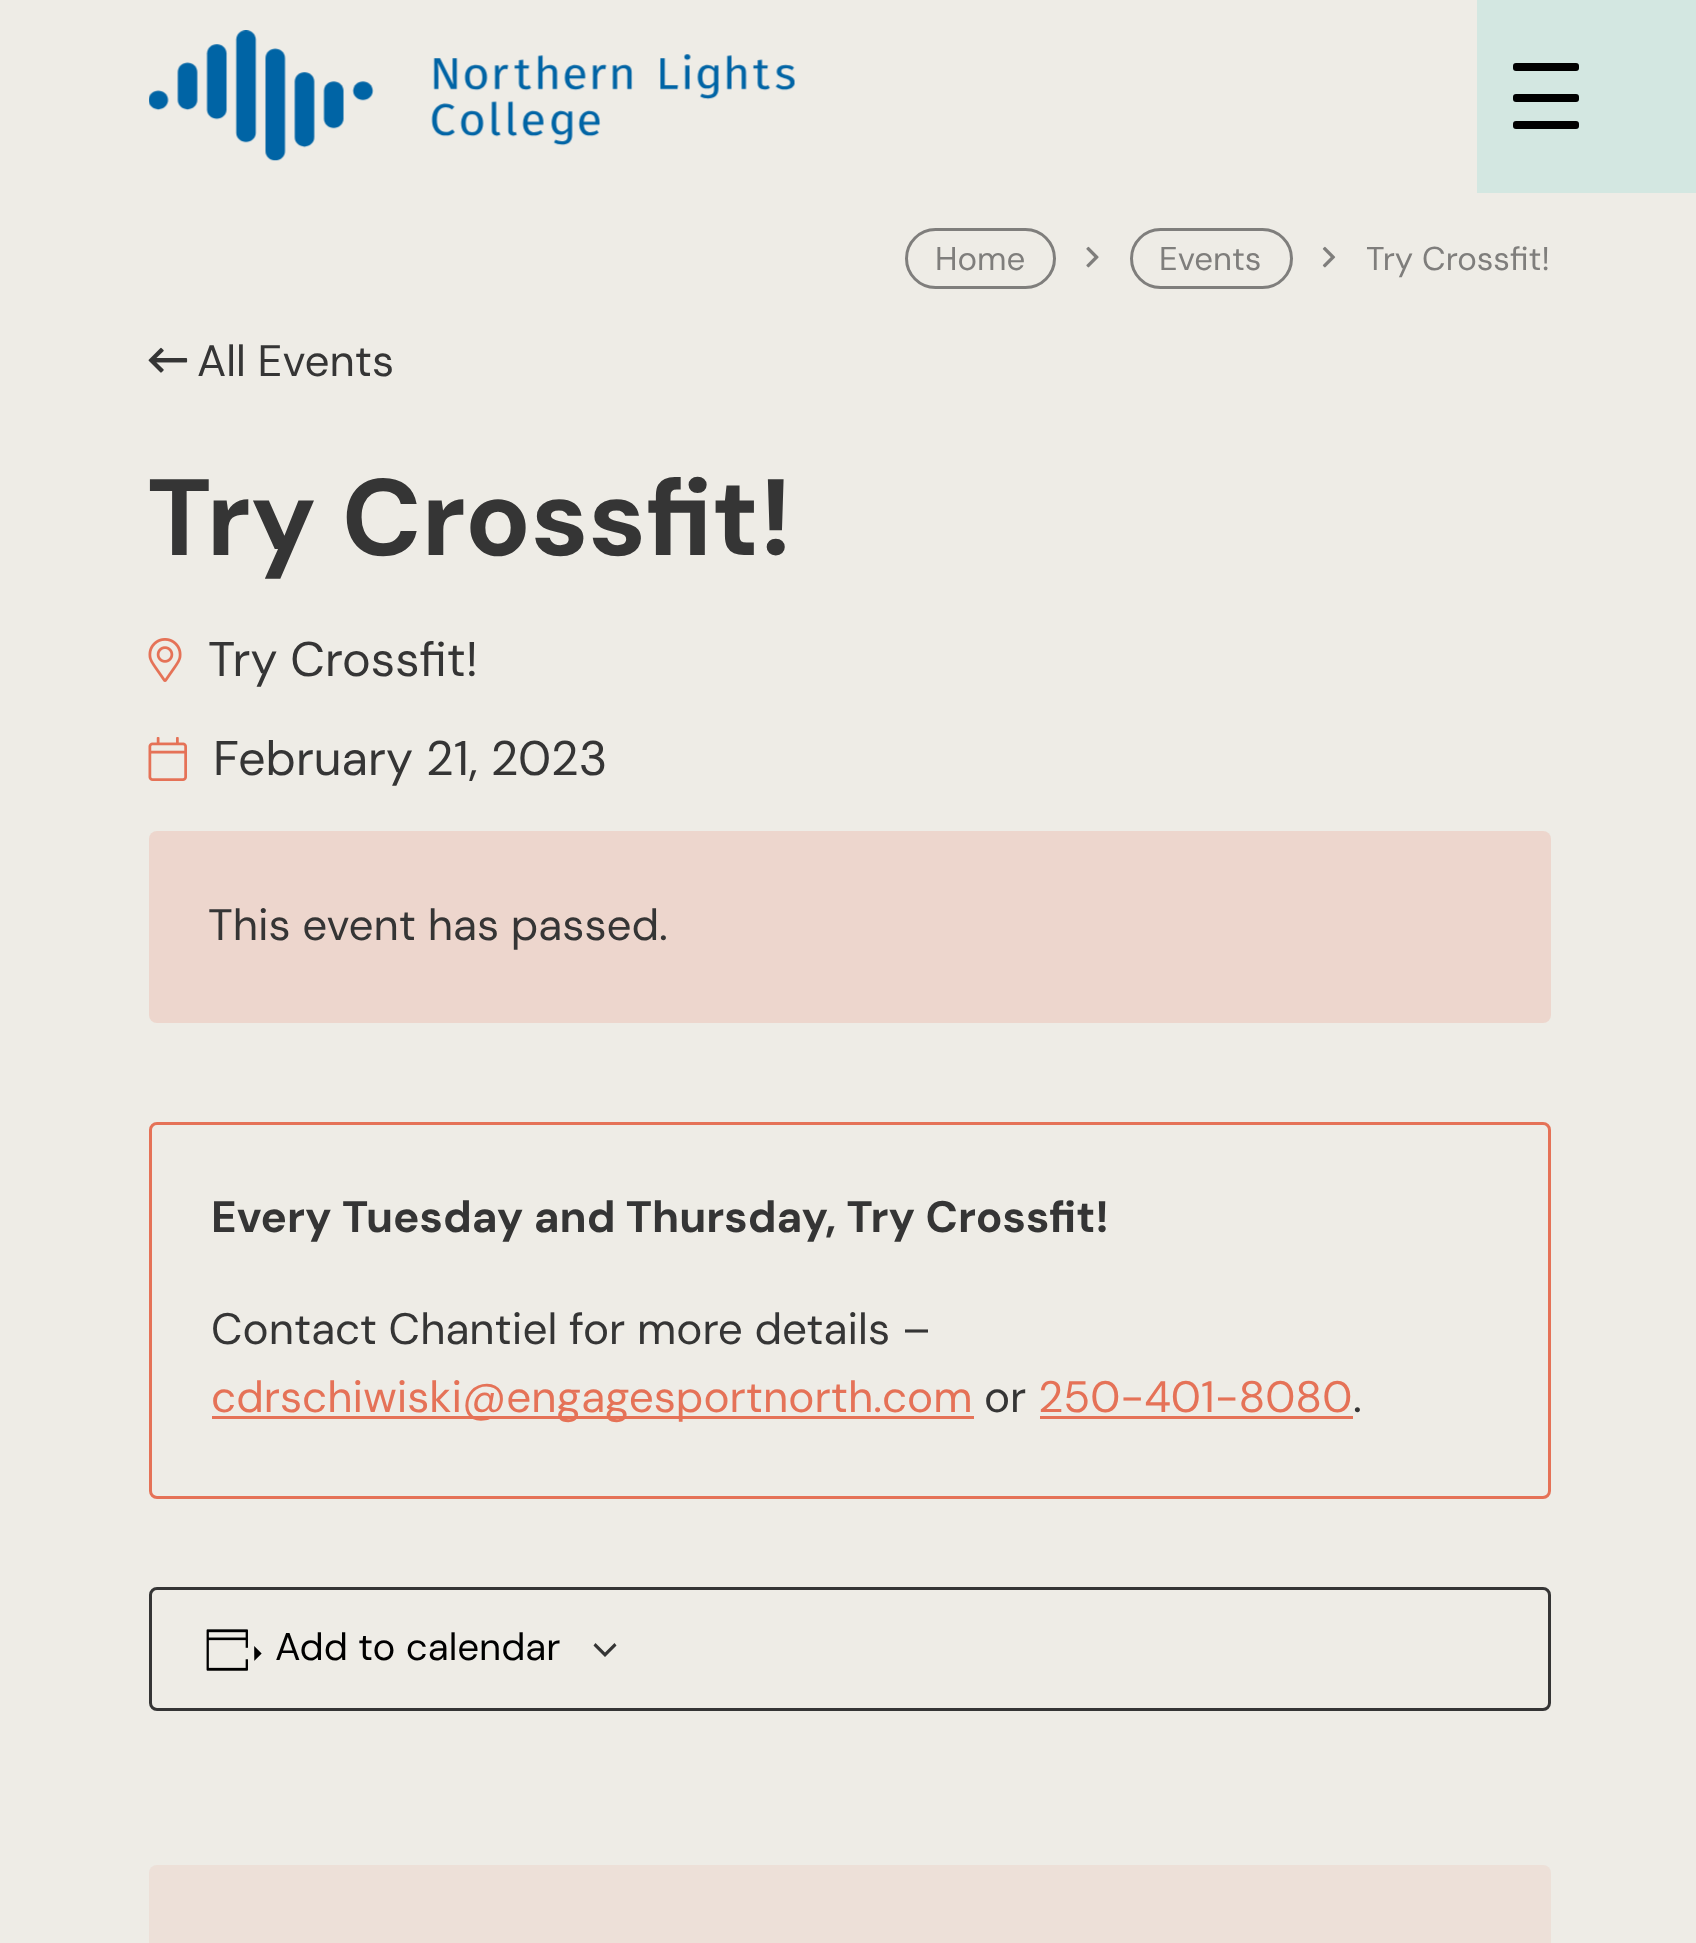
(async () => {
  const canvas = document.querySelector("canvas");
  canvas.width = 1696;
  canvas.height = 1943;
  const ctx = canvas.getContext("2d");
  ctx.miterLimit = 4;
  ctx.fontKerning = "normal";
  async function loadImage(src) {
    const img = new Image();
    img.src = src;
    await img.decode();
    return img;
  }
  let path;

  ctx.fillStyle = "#eeece6";
  ctx.fillRect(0, 0, 1696, 1943);
  ctx.drawImage(await loadImage("img/1.png"), 149, 30, 646, 131);
  ctx.fillStyle = "#d3e7e1";
  ctx.fillRect(1477, 0, 219, 193);
  ctx.fillStyle = "#000000";
  ctx.beginPath();
  ctx.roundRect(1513, 63, 66, 8, 3);
  ctx.fill();
  ctx.beginPath();
  ctx.roundRect(1513, 94, 66, 8, 3);
  ctx.fill();
  ctx.beginPath();
  ctx.roundRect(1513, 121, 66, 8, 3);
  ctx.fill();
  ctx.beginPath();
  ctx.roundRect(906.5, 229.5, 148, 58, 29);
  ctx.strokeStyle = "#7f7e7c";
  ctx.lineWidth = 3;
  ctx.stroke();
  ctx.drawImage(await loadImage("img/2.png"), 1086, 246, 13, 22);
  ctx.beginPath();
  ctx.roundRect(1131.5, 229.5, 160, 58, 29);
  ctx.stroke();
  ctx.drawImage(await loadImage("img/3.png"), 1322, 246, 14, 22);
  ctx.drawImage(await loadImage("img/4.png"), 148, 347, 40, 26);
  ctx.drawImage(await loadImage("img/5.png"), 148, 638, 34, 44);
  ctx.drawImage(await loadImage("img/6.png"), 148, 737, 39, 44);
  ctx.fillStyle = "#edd6cd";
  ctx.beginPath();
  ctx.roundRect(149, 831, 1402, 192, 8);
  ctx.fill();
  ctx.beginPath();
  ctx.roundRect(150.5, 1123.5, 1399, 374, 6.5);
  ctx.strokeStyle = "#e57257";
  ctx.stroke();
  ctx.fillStyle = "#e57257";
  ctx.fillRect(212, 1416, 762, 3);
  ctx.fillRect(1040, 1416, 313, 3);
  ctx.beginPath();
  ctx.roundRect(150.5, 1588.5, 1399, 121, 6.5);
  ctx.strokeStyle = "#353535";
  ctx.stroke();
  ctx.drawImage(await loadImage("img/7.png"), 206, 1629, 56, 42);
  ctx.fillStyle = "#353535";
  path = new Path2D("M595.5 1643L605 1652.5L614.5 1643L616.5 1645.5L605 1657L593.5 1645.5Z");
  ctx.fill(path, "evenodd");
  ctx.fillStyle = "#ede0d8";
  ctx.beginPath();
  ctx.roundRect(149, 1865, 1402, 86, 8);
  ctx.fill();
  ctx.font = "33px DM Sans";
  ctx.fillStyle = "#7f7e7c";
  for (const [text, x, y] of [
    ["Home", 935, 270],
    ["Events", 1159, 270],
    ["Try Crossfit!", 1366, 270],
  ]) {
    ctx.fillText(text, x, y);
  }
  ctx.font = "44px DM Sans";
  ctx.fillStyle = "#353535";
  ctx.fillText("All Events", 197, 376);
  ctx.font = "bold 108.25px DM Sans";
  ctx.fillText("Try Crossfit!", 147, 555);
  ctx.font = "48.5px DM Sans";
  ctx.fillText("Try Crossfit!", 208, 676);
  ctx.fillText("February 21, 2023", 213, 775);
  ctx.font = "44px DM Sans";
  ctx.fillText("This event has passed.", 208, 940);
  ctx.font = "bold 44px DM Sans";
  ctx.fillText("Every Tuesday and Thursday, Try Crossfit!", 211, 1232);
  ctx.font = "44px DM Sans";
  ctx.fillText("Contact Chantiel for more details –", 211, 1344);
  ctx.fillStyle = "#e57257";
  ctx.fillText("cdrschiwiski@engagesportnorth.com", 211, 1412);
  ctx.fillStyle = "#353535";
  ctx.fillText("or", 984, 1412);
  ctx.fillStyle = "#e57257";
  ctx.fillText("250-401-8080", 1038, 1412);
  ctx.fillStyle = "#353535";
  ctx.fillText(".", 1353, 1412);
  ctx.font = "38.5px DM Sans";
  ctx.fillStyle = "#000000";
  ctx.fillText("Add to calendar", 275, 1660);
})();
